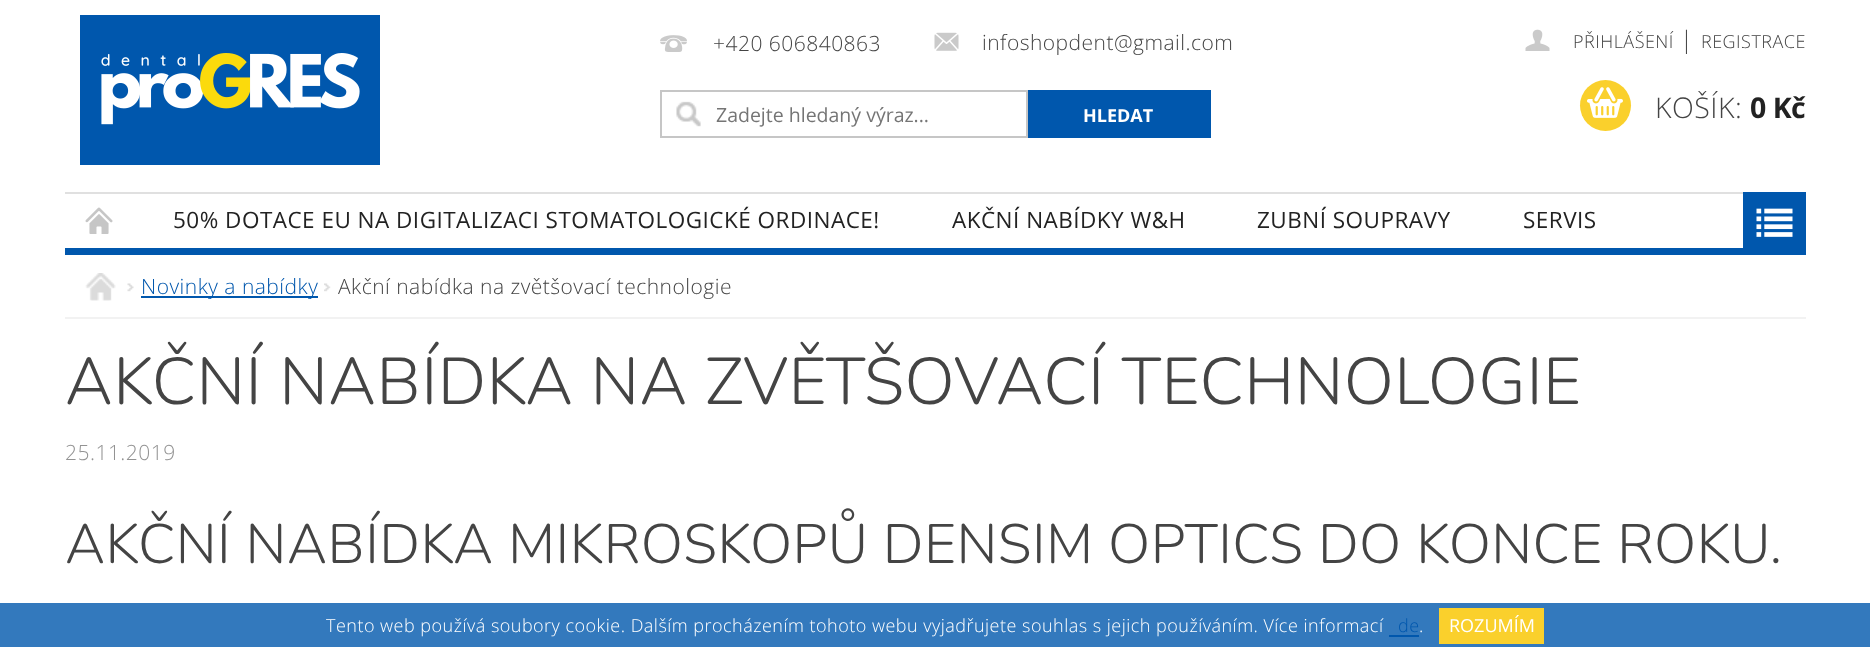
(async () => {
  const canvas = document.querySelector("canvas");
  canvas.width = 1870;
  canvas.height = 647;
  const ctx = canvas.getContext("2d");
  ctx.miterLimit = 4;
  ctx.fontKerning = "normal";
  async function loadImage(src) {
    const img = new Image();
    img.src = src;
    await img.decode();
    return img;
  }

  ctx.fillStyle = "#ffffff";
  ctx.fillRect(0, 0, 1870, 647);
  ctx.fillStyle = "#0057ad";
  ctx.fillRect(65, 248, 1678, 7);
  ctx.drawImage(await loadImage("img/1.png"), 80, 15, 300, 150);
  ctx.drawImage(await loadImage("img/2.png"), 660, 35, 27, 17);
  ctx.drawImage(await loadImage("img/3.png"), 934, 32, 25, 19);
  ctx.drawImage(await loadImage("img/4.png"), 676, 101, 25, 26);
  ctx.strokeStyle = "#c6c6c6";
  ctx.lineWidth = 2;
  ctx.strokeRect(661, 91, 366, 46);
  ctx.fillRect(1028, 90, 183, 48);
  ctx.drawImage(await loadImage("img/5.png"), 1525, 29, 25, 22);
  ctx.fillStyle = "#fad02c";
  ctx.beginPath();
  ctx.arc(1605.5, 105.5, 25.5, 0, Math.PI * 2);
  ctx.fill();
  ctx.drawImage(await loadImage("img/6.png"), 1587, 87, 36, 31);
  ctx.fillStyle = "#e0e0e0";
  ctx.fillRect(65, 192, 1678, 2);
  ctx.drawImage(await loadImage("img/7.png"), 85, 207, 28, 27);
  ctx.fillStyle = "#0057ad";
  ctx.fillRect(1743, 192, 63, 63);
  ctx.drawImage(await loadImage("img/8.png"), 1756, 208, 37, 29);
  ctx.fillStyle = "#f2f2f2";
  ctx.fillRect(65, 317, 1741, 2);
  ctx.drawImage(await loadImage("img/9.png"), 85, 273, 31, 28);
  ctx.drawImage(await loadImage("img/10.png"), 127, 283, 7, 9);
  ctx.fillStyle = "#0057ad";
  ctx.fillRect(141, 296, 177, 2);
  ctx.drawImage(await loadImage("img/11.png"), 324, 283, 7, 9);
  for (const [x, y, w, h, color] of [
    [0, 603, 1870, 44, "rgba(0, 87, 173, 0.8)"],
    [1389, 635, 30, 2, "#0057ad"],
    [1439, 608, 105, 36, "#fad02c"],
  ]) {
    ctx.fillStyle = color;
    ctx.fillRect(x, y, w, h);
  }
  ctx.letterSpacing = "0.48px";
  ctx.font = "300 21px Open Sans";
  ctx.fillStyle = "#444444";
  ctx.fillText("+420 606840863", 713, 51);
  ctx.fillText("infoshopdent@gmail.com", 982, 50);
  ctx.letterSpacing = "0px";
  ctx.font = "19.5px Open Sans";
  ctx.fillStyle = "#757575";
  ctx.fillText("Zadejte hledaný výraz...", 716, 122);
  ctx.font = "bold 18px Open Sans";
  ctx.fillStyle = "#ffffff";
  ctx.fillText("HLEDAT", 1083, 122);
  ctx.letterSpacing = "0.48px";
  ctx.font = "300 18px Open Sans";
  ctx.fillStyle = "#444444";
  ctx.fillText("PŘIHLÁŠENÍ", 1573, 48);
  ctx.font = "300 24px Open Sans";
  ctx.fillText("|", 1680, 48);
  ctx.font = "300 18px Open Sans";
  ctx.fillText("REGISTRACE", 1701, 48);
  ctx.font = "300 28.5px Open Sans";
  ctx.fillText("KOŠÍK:", 1655, 118);
  ctx.letterSpacing = "-0.5px";
  ctx.font = "bold 28.5px Open Sans";
  ctx.fillStyle = "#222222";
  ctx.fillText("0 Kč", 1750, 118);
  ctx.letterSpacing = "0.48px";
  ctx.font = "22.5px Open Sans";
  for (const [text, x, y] of [
    ["50% DOTACE EU NA DIGITALIZACI STOMATOLOGICKÉ ORDINACE!", 173, 228],
    ["AKČNÍ NABÍDKY W&H", 952, 228],
    ["ZUBNÍ SOUPRAVY", 1257, 228],
    ["SERVIS", 1523, 228],
  ]) {
    ctx.fillText(text, x, y);
  }
  ctx.font = "300 21px Open Sans";
  ctx.fillStyle = "#0057ad";
  ctx.fillText("Novinky a nabídky", 141, 294);
  ctx.fillStyle = "#444444";
  ctx.fillText("Akční nabídka na zvětšovací technologie", 338, 294);
  ctx.font = "300 66px Nunito";
  ctx.fillText("AKČNÍ NABÍDKA NA ZVĚTŠOVACÍ TECHNOLOGIE", 65, 404);
  ctx.font = "300 21px Open Sans";
  ctx.fillStyle = "#939393";
  ctx.fillText("25.11.2019", 65, 460);
  ctx.font = "300 55.5px Nunito";
  ctx.fillStyle = "#444444";
  ctx.fillText("AKČNÍ NABÍDKA MIKROSKOPŮ DENSIM OPTICS DO KONCE ROKU.", 65, 563);
  ctx.font = "300 18px Open Sans";
  ctx.fillStyle = "#ffffff";
  ctx.fillText("Tento web používá soubory cookie. Dalším procházením tohoto webu vyjadřujete souhlas s jejich používáním. Více informací", 326, 632);
  ctx.fillStyle = "#0057ad";
  ctx.fillText("de", 1398, 632);
  ctx.fillStyle = "#ffffff";
  ctx.fillText(".", 1419, 632);
  ctx.letterSpacing = "0px";
  ctx.font = "18px Open Sans";
  ctx.fillText("ROZUMÍM", 1449, 632);
})();
